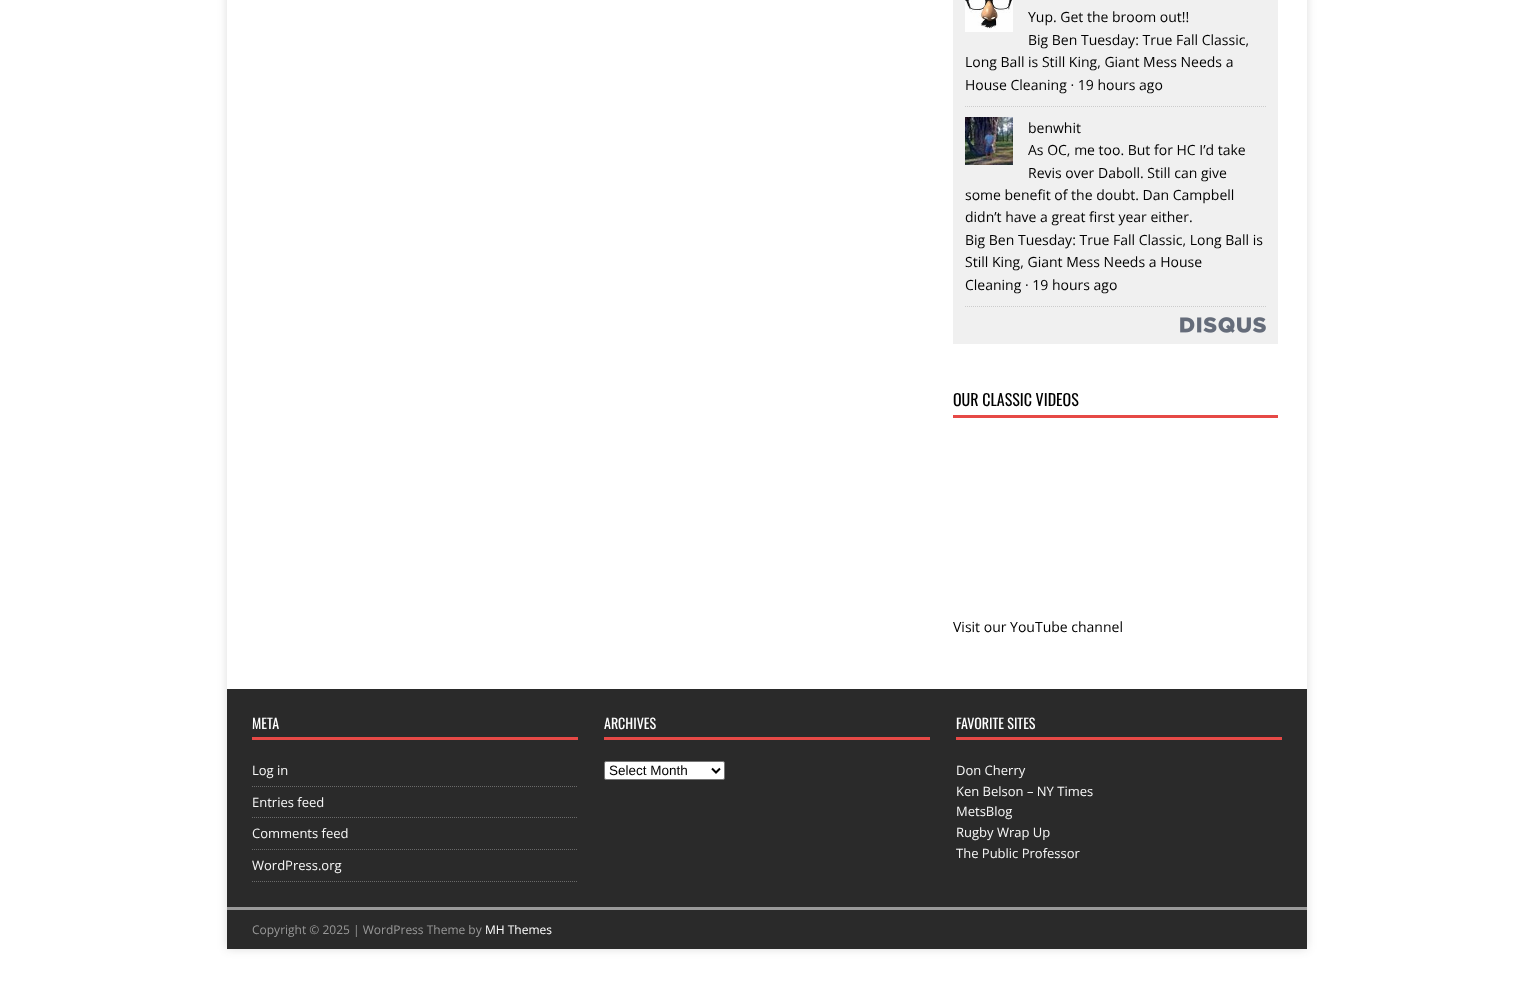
(async () => {
  const canvas = document.querySelector("canvas");
  canvas.width = 1534;
  canvas.height = 997;
  const ctx = canvas.getContext("2d");
  ctx.miterLimit = 4;
  ctx.fontKerning = "normal";
  async function loadImage(src) {
    const img = new Image();
    img.src = src;
    await img.decode();
    return img;
  }
  let path;

  ctx.fillStyle = "#ffffff";
  ctx.fillRect(0, 0, 1534, 997);
  ctx.save();
  path = new Path2D("M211 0H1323V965H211ZM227-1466H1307V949H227Z");
  ctx.clip(path, "evenodd");
  ctx.fillStyle = "rgba(50, 50, 50, 0.17)";
  ctx.filter = "blur(5px)";
  ctx.beginPath();
  ctx.rect(227, -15, 1080, 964);
  ctx.fill();
  ctx.filter = "none";
  ctx.restore();
  ctx.fillStyle = "#f0f0f0";
  ctx.fillRect(953, 0, 325, 344);
  path = new Path2D("M965 106.5H1266");
  ctx.strokeStyle = "#cccccc";
  ctx.setLineDash([1, 1]);
  ctx.stroke(path);
  ctx.drawImage(await loadImage("img/1.png"), 965, 0, 48, 32);
  path = new Path2D("M965 306.5H1266");
  ctx.stroke(path);
  ctx.drawImage(await loadImage("img/2.png"), 965, 117, 48, 48);
  ctx.drawImage(await loadImage("img/3.png"), 1180, 317, 86, 16);
  for (const [x, y, w, h, color] of [
    [953, 415, 325, 3, "#e64946"],
    [227, 689, 1080, 218, "#2a2a2a"],
    [252, 737, 326, 3, "#e64946"],
  ]) {
    ctx.fillStyle = color;
    ctx.fillRect(x, y, w, h);
  }
  path = new Path2D("M252 786.5H578");
  ctx.strokeStyle = "#6a6a6a";
  ctx.stroke(path);
  path = new Path2D("M252 817.5H578");
  ctx.stroke(path);
  path = new Path2D("M252 849.5H578");
  ctx.stroke(path);
  path = new Path2D("M252 881.5H578");
  ctx.stroke(path);
  ctx.fillRect(604, 737, 326, 3);
  ctx.fillStyle = "#ffffff";
  ctx.beginPath();
  ctx.roundRect(604.5, 761.5, 120, 18, 1.5);
  ctx.fill();
  ctx.strokeStyle = "#767676";
  ctx.setLineDash([]);
  ctx.stroke();
  path = new Path2D("M712 768.5L716 772.5L720 768.5");
  ctx.strokeStyle = "#000000";
  ctx.lineWidth = 2;
  ctx.stroke(path);
  for (const [x, y, w, h, color] of [
    [956, 737, 326, 3, "#e64946"],
    [227, 910, 1080, 39, "#2a2a2a"],
    [227, 907, 1080, 3, "#999999"],
  ]) {
    ctx.fillStyle = color;
    ctx.fillRect(x, y, w, h);
  }
  ctx.font = "14px Open Sans";
  ctx.fillStyle = "#000000";
  for (const [text, x, y] of [
    ["Yup. Get the broom out!!", 1028, 22],
    ["Big Ben Tuesday: True Fall Classic,", 1028, 45],
    ["Long Ball is Still King, Giant Mess Needs a", 965, 67],
    ["House Cleaning · 19 hours ago", 965, 90],
    ["benwhit", 1028, 133],
    ["As OC, me too. But for HC I’d take", 1028, 155],
    ["Revis over Daboll. Still can give", 1028, 178],
    ["some benefit of the doubt. Dan Campbell", 965, 200],
    ["didn’t have a great first year either.", 965, 222],
    ["Big Ben Tuesday: True Fall Classic, Long Ball is", 965, 245],
    ["Still King, Giant Mess Needs a House", 965, 267],
    ["Cleaning · 19 hours ago", 965, 290],
  ]) {
    ctx.fillText(text, x, y);
  }
  ctx.font = "16px Oswald";
  ctx.fillText("OUR CLASSIC VIDEOS", 953, 406);
  ctx.font = "14px Open Sans";
  ctx.fillText("Visit our YouTube channel", 953, 632);
  ctx.font = "14px Oswald";
  ctx.fillStyle = "#ffffff";
  ctx.fillText("META", 252, 729);
  ctx.font = "13px Open Sans";
  ctx.fillStyle = "#f7f7f7";
  for (const [text, x, y] of [
    ["Log in", 252, 775],
    ["Entries feed", 252, 807],
    ["Comments feed", 252, 838],
    ["WordPress.org", 252, 870],
  ]) {
    ctx.fillText(text, x, y);
  }
  ctx.font = "14px Oswald";
  ctx.fillStyle = "#ffffff";
  ctx.fillText("ARCHIVES", 604, 729);
  ctx.font = "13.5px Liberation Sans";
  ctx.fillStyle = "#000000";
  ctx.fillText("Select Month", 609, 775);
  ctx.font = "14px Oswald";
  ctx.fillStyle = "#ffffff";
  ctx.fillText("FAVORITE SITES", 956, 729);
  ctx.font = "13px Open Sans";
  ctx.fillStyle = "#f7f7f7";
  for (const [text, x, y] of [
    ["Don Cherry", 956, 775],
    ["Ken Belson – NY Times", 956, 796],
    ["MetsBlog", 956, 816],
    ["Rugby Wrap Up", 956, 837],
    ["The Public Professor", 956, 858],
  ]) {
    ctx.fillText(text, x, y);
  }
  ctx.font = "12px Open Sans";
  ctx.fillStyle = "#999999";
  ctx.fillText("Copyright © 2025 | WordPress Theme by", 252, 934);
  ctx.fillStyle = "#ffffff";
  ctx.fillText("MH Themes", 485, 934);
})();
